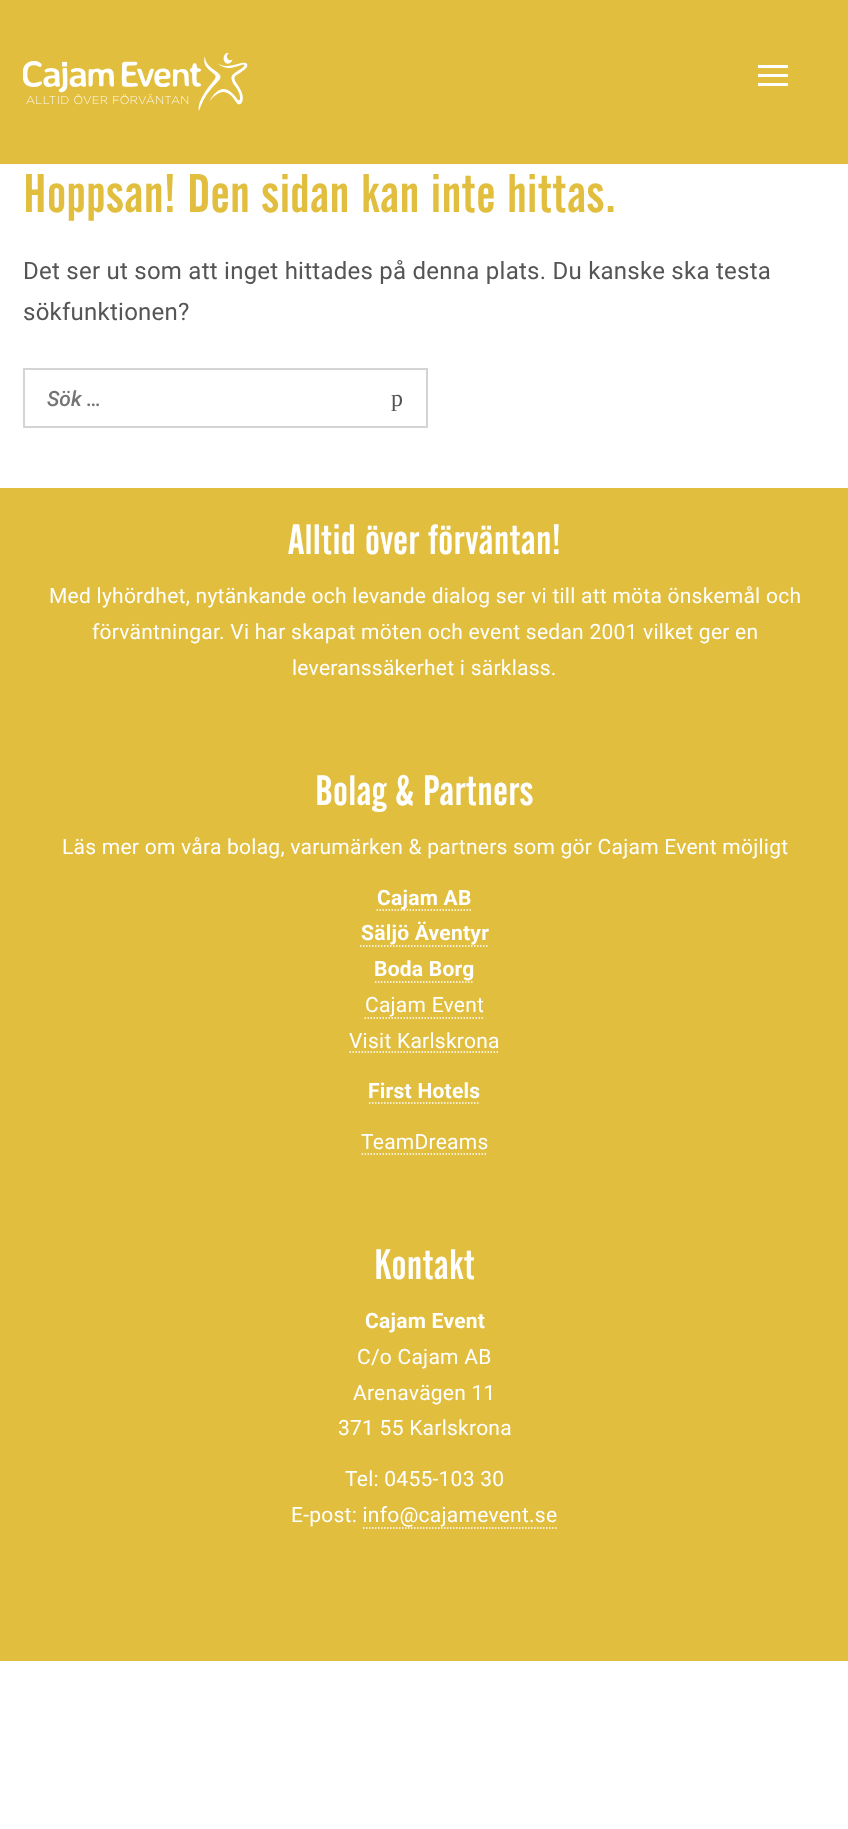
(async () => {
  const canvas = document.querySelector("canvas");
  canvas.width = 848;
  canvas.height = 1829;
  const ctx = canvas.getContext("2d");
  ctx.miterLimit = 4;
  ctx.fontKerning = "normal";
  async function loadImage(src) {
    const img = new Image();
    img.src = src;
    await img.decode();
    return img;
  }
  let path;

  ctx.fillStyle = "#ffffff";
  ctx.fillRect(0, 0, 848, 1829);
  ctx.fillStyle = "#e1be3e";
  ctx.fillRect(0, 0, 848, 164);
  ctx.drawImage(await loadImage("img/1.png"), 23, 53, 225, 58);
  for (const [x, y, w, h, color] of [
    [758, 65, 30, 3, "#ffffff"],
    [758, 74, 30, 3, "#ffffff"],
    [758, 83, 30, 3, "#ffffff"],
  ]) {
    ctx.fillStyle = color;
    ctx.fillRect(x, y, w, h);
  }
  ctx.strokeStyle = "#d4d4d4";
  ctx.lineWidth = 2;
  ctx.strokeRect(24, 369, 403, 58);
  ctx.fillStyle = "#e1be3e";
  ctx.fillRect(0, 488, 848, 1173);
  path = new Path2D("M376.5 910H472.5");
  ctx.strokeStyle = "#ffffff";
  ctx.lineWidth = 1.5;
  ctx.setLineDash([1.5, 1.5]);
  ctx.stroke(path);
  path = new Path2D("M360 946H489");
  ctx.stroke(path);
  path = new Path2D("M375 982H474");
  ctx.stroke(path);
  path = new Path2D("M364.5 1018H484.5");
  ctx.stroke(path);
  path = new Path2D("M349.5 1052H499.5");
  ctx.stroke(path);
  path = new Path2D("M369 1103H480");
  ctx.stroke(path);
  path = new Path2D("M361.5 1154H487.5");
  ctx.stroke(path);
  path = new Path2D("M363 1528H558");
  ctx.stroke(path);
  ctx.letterSpacing = "0.25px";
  ctx.font = "54px 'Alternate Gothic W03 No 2'";
  ctx.fillText("Hoppsan! Den sidan kan inte hittas.", 23, 212);
  ctx.font = "24px Roboto";
  ctx.fillStyle = "#555555";
  ctx.fillText("Det ser ut som att inget hittades på denna plats. Du kanske ska testa", 23, 279);
  ctx.fillText("sökfunktionen?", 23, 320);
  ctx.letterSpacing = "0px";
  ctx.font = "italic 500 21px Roboto";
  ctx.fillStyle = "#757575";
  ctx.fillText("Sök …", 47, 406);
  ctx.letterSpacing = "0.25px";
  ctx.font = "24px Liberation Serif";
  ctx.fillStyle = "#555555";
  ctx.fillText("p", 391, 406);
  ctx.font = "42px 'Alternate Gothic W03 No 2'";
  ctx.fillStyle = "#ffffff";
  ctx.fillText("Alltid över förväntan!", 288, 554);
  ctx.font = "21px Roboto";
  for (const [text, x, y] of [
    ["Med lyhördhet, nytänkande och levande dialog ser vi till att möta önskemål och", 49, 603],
    ["förväntningar. Vi har skapat möten och event sedan 2001 vilket ger en", 92, 639],
    ["leveranssäkerhet i särklass.", 292, 675],
  ]) {
    ctx.fillText(text, x, y);
  }
  ctx.font = "42px 'Alternate Gothic W03 No 2'";
  ctx.fillText("Bolag & Partners", 315, 805);
  ctx.font = "21px Roboto";
  ctx.fillText("Läs mer om våra bolag, varumärken & partners som gör Cajam Event möjligt", 62, 854);
  ctx.font = "bold 21px Roboto";
  for (const [text, x, y] of [
    ["Cajam AB", 377, 905],
    ["Säljö Äventyr", 361, 940],
    ["Boda Borg", 374, 976],
  ]) {
    ctx.fillText(text, x, y);
  }
  ctx.font = "21px Roboto";
  ctx.fillText("Cajam Event", 365, 1012);
  ctx.fillText("Visit Karlskrona", 349, 1048);
  ctx.font = "bold 21px Roboto";
  ctx.fillText("First Hotels", 368, 1098);
  ctx.font = "21px Roboto";
  ctx.fillText("TeamDreams", 361, 1149);
  ctx.font = "42px 'Alternate Gothic W03 No 2'";
  ctx.fillText("Kontakt", 374, 1279);
  ctx.font = "bold 21px Roboto";
  ctx.fillText("Cajam Event", 365, 1328);
  ctx.font = "21px Roboto";
  for (const [text, x, y] of [
    ["C/o Cajam AB", 357, 1364],
    ["Arenavägen 11", 353, 1400],
    ["371 55 Karlskrona", 338, 1435],
    ["Tel: 0455-103 30", 345, 1486],
    ["E-post: info@cajamevent.se", 291, 1522],
  ]) {
    ctx.fillText(text, x, y);
  }
})();
